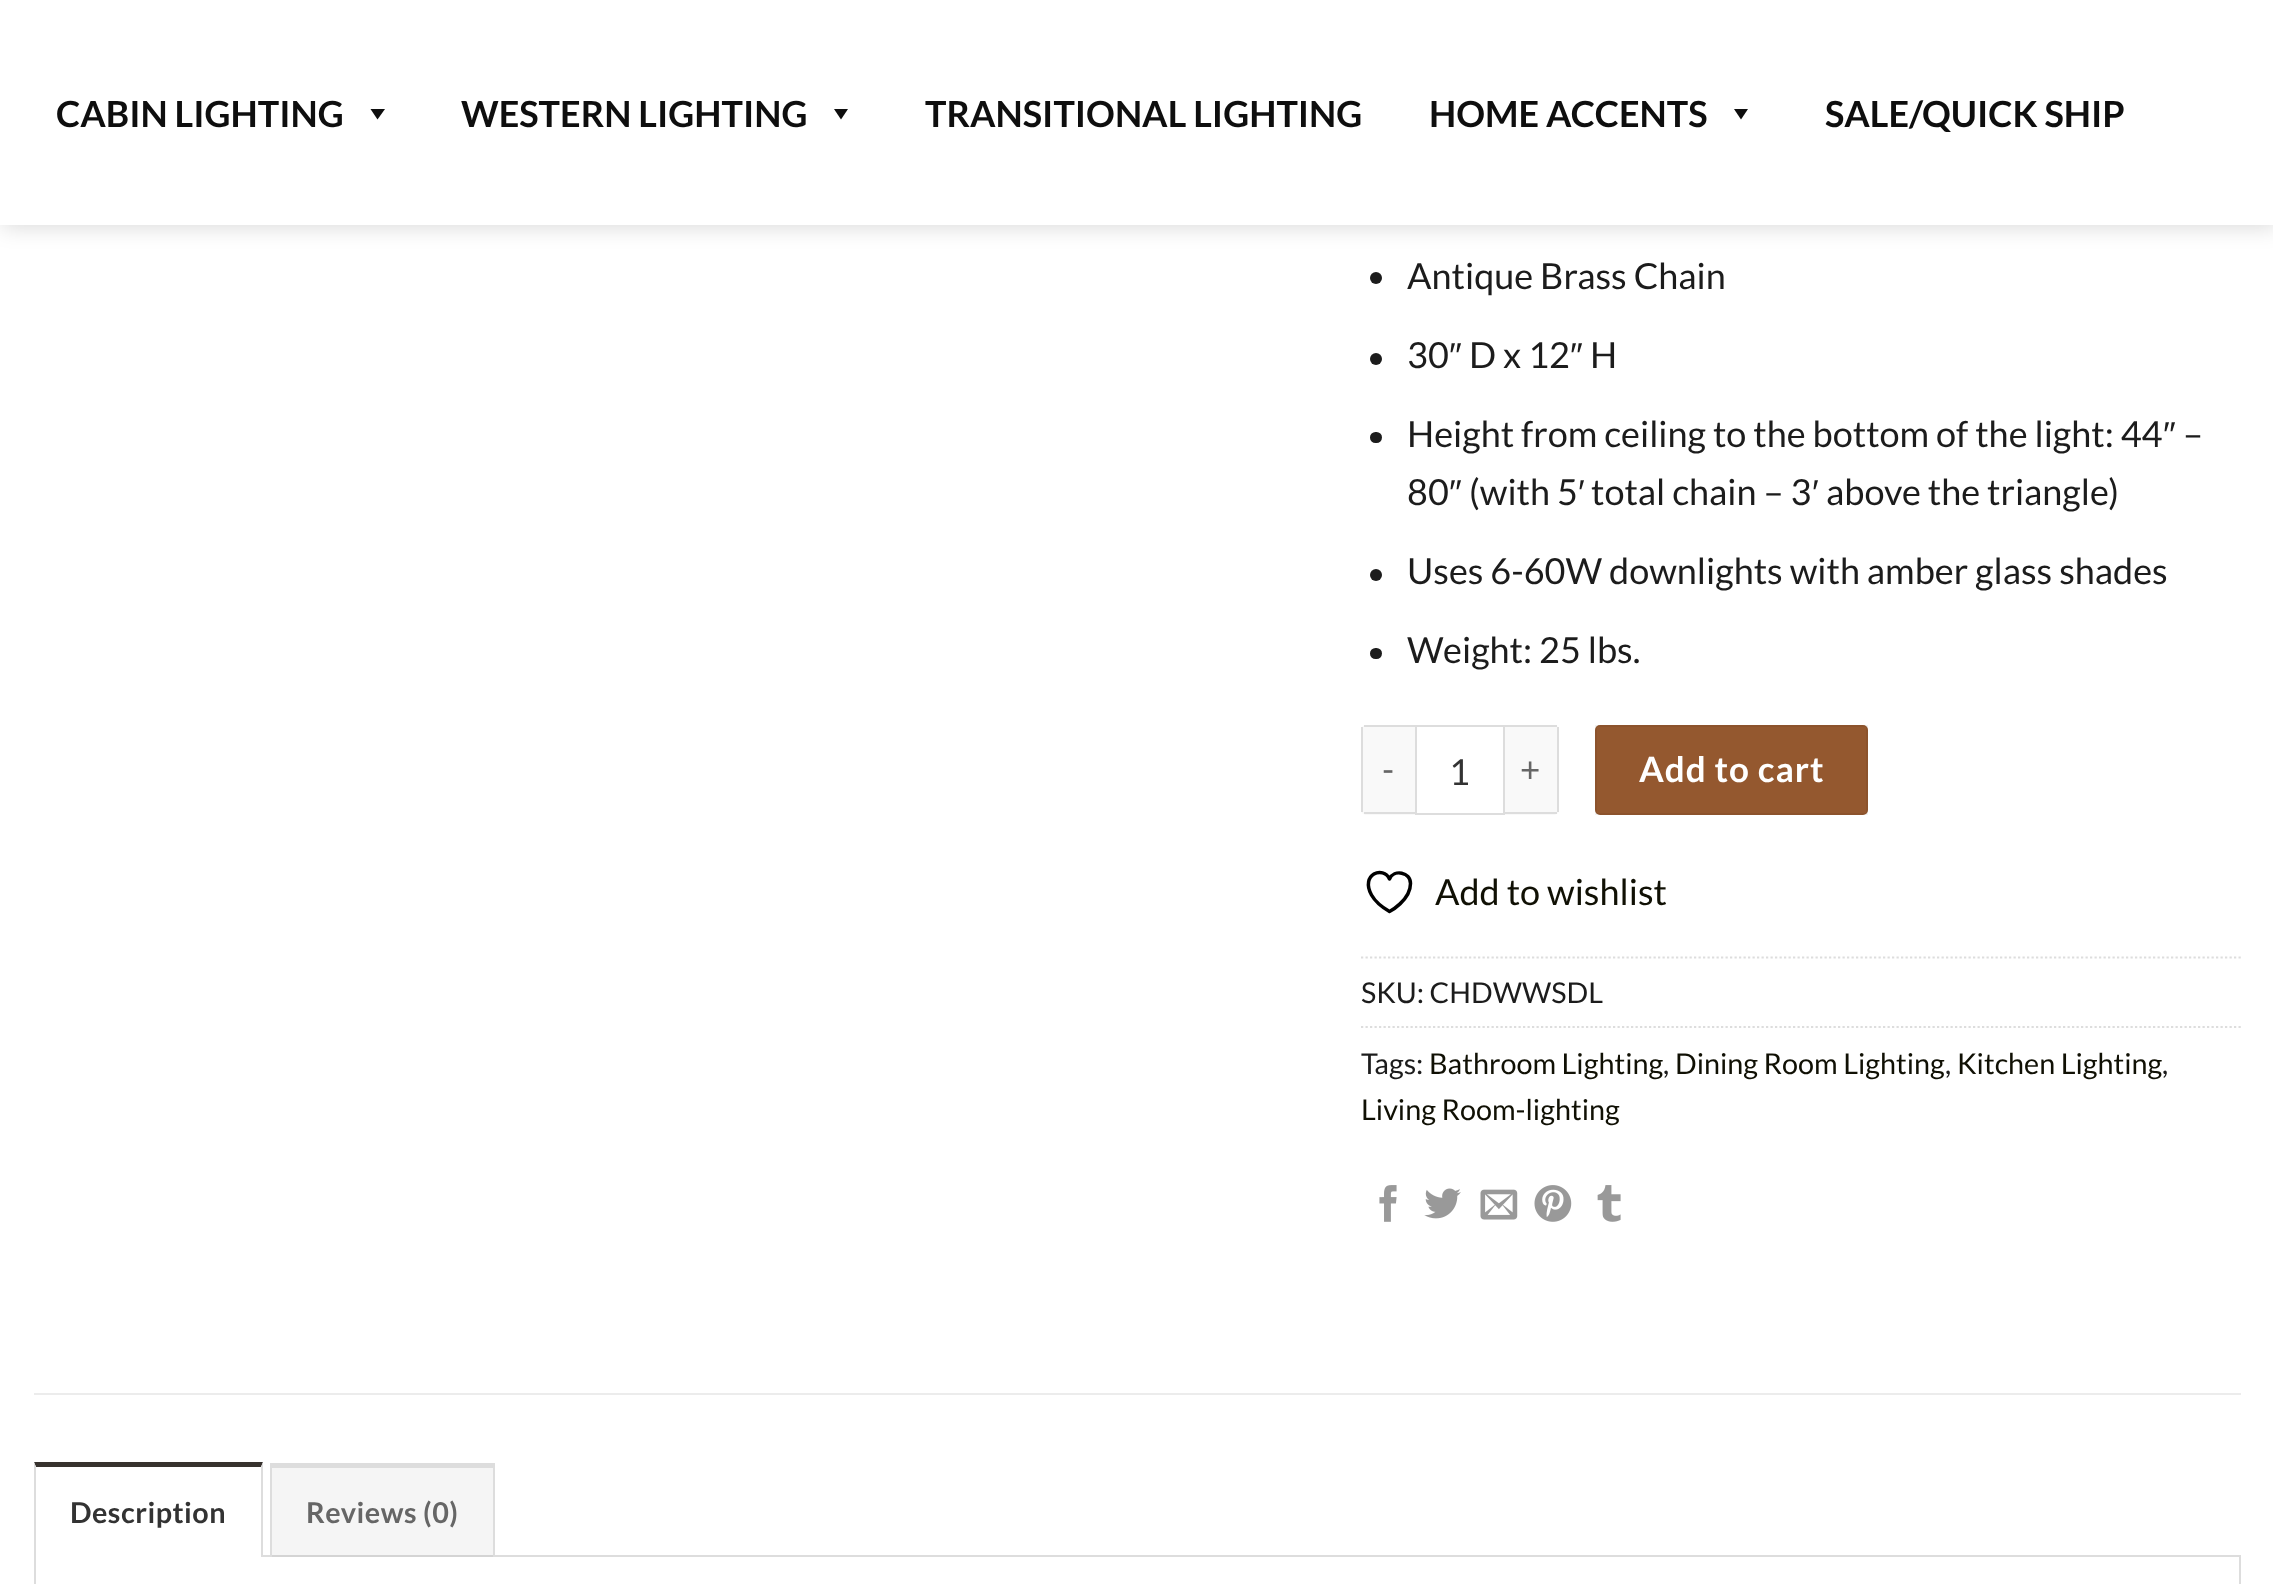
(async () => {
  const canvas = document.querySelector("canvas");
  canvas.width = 2273;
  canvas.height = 1584;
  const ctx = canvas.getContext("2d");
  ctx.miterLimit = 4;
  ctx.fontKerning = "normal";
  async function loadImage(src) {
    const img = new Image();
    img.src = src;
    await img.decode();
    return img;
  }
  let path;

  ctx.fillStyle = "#ffffff";
  ctx.fillRect(0, 0, 2273, 1584);
  ctx.fillStyle = "rgba(0, 0, 0, 0.15)";
  ctx.filter = "blur(11px)";
  ctx.beginPath();
  ctx.rect(2, 2, 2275, 225);
  ctx.fill();
  ctx.filter = "none";
  ctx.fillStyle = "#ffffff";
  ctx.fillRect(0, 0, 2273, 225);
  ctx.fillStyle = "#0e0e0e";
  path = new Path2D("M385 109L377.5 119.5L370.5 109Z");
  ctx.fill(path);
  path = new Path2D("M848 109L841 119.5L834 109Z");
  ctx.fill(path);
  path = new Path2D("M1748 109L1741 119.5L1734 109Z");
  ctx.fill(path);
  ctx.fillStyle = "#1c1c1c";
  ctx.beginPath();
  ctx.arc(1376, 278, 6, 0, Math.PI * 2);
  ctx.fill();
  ctx.beginPath();
  ctx.arc(1376, 359, 6, 0, Math.PI * 2);
  ctx.fill();
  ctx.beginPath();
  ctx.roundRect(1370, 432, 12, 11, 5.5);
  ctx.fill();
  ctx.beginPath();
  ctx.arc(1376, 575, 6, 0, Math.PI * 2);
  ctx.fill();
  ctx.beginPath();
  ctx.roundRect(1370, 648, 12, 11, 5.5);
  ctx.fill();
  ctx.fillStyle = "#f9f9f9";
  ctx.beginPath();
  ctx.roundRect(1361, 725, 54, 90, [5, 0, 0, 5]);
  ctx.fill();
  for (const [x, y, w, h, color] of [
    [1364, 725, 51, 2, "#dddddd"],
    [1364, 812, 51, 2, "#dddddd"],
    [1361, 727, 2, 85, "#dddddd"],
  ]) {
    ctx.fillStyle = color;
    ctx.fillRect(x, y, w, h);
  }
  ctx.strokeStyle = "#dddddd";
  ctx.lineWidth = 2;
  ctx.strokeRect(1416, 726, 88, 88);
  ctx.fillStyle = "#f9f9f9";
  ctx.beginPath();
  ctx.roundRect(1505, 725, 54, 90, [0, 5, 5, 0]);
  ctx.fill();
  for (const [x, y, w, h, color] of [
    [1505, 725, 52, 2, "#dddddd"],
    [1557, 727, 2, 85, "#dddddd"],
    [1505, 812, 52, 2, "#dddddd"],
  ]) {
    ctx.fillStyle = color;
    ctx.fillRect(x, y, w, h);
  }
  ctx.fillStyle = "#94582f";
  ctx.beginPath();
  ctx.roundRect(1595, 725, 273, 90, 5);
  ctx.fill();
  ctx.strokeStyle = "rgba(0, 0, 0, 0.05)";
  ctx.strokeRect(1596, 726, 271, 88);
  path = new Path2D("M1410.5 883.5C1410.5 872 1394 869 1389.5 879C1383.5 865.5 1360 874 1371.5 895C1375.5 902 1382.5 907.5 1389.5 911.5C1389.5 911.5 1410.5 900.5 1410.5 883.5Z");
  ctx.strokeStyle = "#000000";
  ctx.lineWidth = 3.5;
  ctx.lineCap = "round";
  ctx.lineJoin = "round";
  ctx.stroke(path);
  path = new Path2D("M1361 957.5H2241");
  ctx.strokeStyle = "#dddddd";
  ctx.lineWidth = 2.2;
  ctx.lineCap = "butt";
  ctx.lineJoin = "miter";
  ctx.setLineDash([2.25, 2.25]);
  ctx.stroke(path);
  path = new Path2D("M1361 1027H2241");
  ctx.stroke(path);
  ctx.drawImage(await loadImage("img/1.png"), 1379, 1185, 18, 37);
  ctx.drawImage(await loadImage("img/2.png"), 1424, 1188, 37, 31);
  ctx.drawImage(await loadImage("img/3.png"), 1480, 1189, 38, 31);
  ctx.drawImage(await loadImage("img/4.png"), 1534, 1185, 38, 37);
  ctx.drawImage(await loadImage("img/5.png"), 1597, 1185, 24, 37);
  ctx.fillStyle = "#ececec";
  ctx.fillRect(34, 1393, 2207, 2);
  ctx.lineWidth = 2;
  ctx.setLineDash([]);
  ctx.strokeRect(35, 1556, 2205, 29);
  ctx.fillStyle = "#ffffff";
  ctx.fillRect(34, 1555, 229, 2);
  ctx.fillStyle = "#37322e";
  path = new Path2D("M34 1462H263L261 1467H36Z");
  ctx.fill(path);
  ctx.fillStyle = "#dddddd";
  path = new Path2D("M263 1462V1557H261V1467Z");
  ctx.fill(path);
  path = new Path2D("M34 1557V1462L36 1467V1557Z");
  ctx.fill(path);
  for (const [x, y, w, h, color] of [
    [272, 1468, 221, 89, "rgba(0, 0, 0, 0.04)"],
    [270, 1463, 225, 5, "#dddddd"],
    [493, 1463, 2, 94, "#dddddd"],
    [270, 1463, 2, 94, "#dddddd"],
  ]) {
    ctx.fillStyle = color;
    ctx.fillRect(x, y, w, h);
  }
  ctx.font = "bold 36px Lato";
  ctx.fillStyle = "#0e0e0e";
  for (const [text, x, y] of [
    ["CABIN LIGHTING", 56, 127],
    ["WESTERN LIGHTING", 461, 127],
    ["TRANSITIONAL LIGHTING", 925, 127],
    ["HOME ACCENTS", 1429, 127],
    ["SALE/QUICK SHIP", 1825, 127],
  ]) {
    ctx.fillText(text, x, y);
  }
  ctx.font = "36px Lato";
  ctx.fillStyle = "#1c1c1c";
  ctx.fillText("Antique Brass Chain", 1407, 289);
  ctx.fillText("30", 1407, 368);
  ctx.font = "36px Liberation Sans";
  ctx.fillText("″", 1449, 368);
  ctx.font = "36px Lato";
  ctx.fillText("D x 12", 1469, 368);
  ctx.font = "36px Liberation Sans";
  ctx.fillText("″", 1570, 368);
  ctx.font = "36px Lato";
  ctx.fillText("H", 1590, 368);
  ctx.fillText("Height from ceiling to the bottom of the light: 44", 1407, 447);
  ctx.font = "36px Liberation Sans";
  ctx.fillText("″", 2163, 447);
  ctx.font = "36px Lato";
  ctx.fillText("–", 2183, 447);
  ctx.fillText("80", 1407, 505);
  ctx.font = "36px Liberation Sans";
  ctx.fillText("″", 1449, 505);
  ctx.font = "36px Lato";
  ctx.fillText("(with 5", 1469, 505);
  ctx.font = "36px Liberation Sans";
  ctx.fillText("′", 1578, 505);
  ctx.font = "36px Lato";
  ctx.fillText("total chain – 3", 1591, 505);
  ctx.font = "36px Liberation Sans";
  ctx.fillText("′", 1812, 505);
  ctx.font = "36px Lato";
  for (const [text, x, y] of [
    ["above the triangle)", 1826, 505],
    ["Uses 6-60W downlights with amber glass shades", 1407, 584],
    ["Weight: 25 lbs.", 1407, 663],
  ]) {
    ctx.fillText(text, x, y);
  }
  ctx.letterSpacing = "1px";
  ctx.font = "35px Lato";
  ctx.fillStyle = "#666666";
  ctx.fillText("-", 1382, 782);
  ctx.letterSpacing = "0px";
  ctx.font = "36px Lato";
  ctx.fillStyle = "#333333";
  ctx.fillText("1", 1449, 785);
  ctx.letterSpacing = "1px";
  ctx.font = "35px Lato";
  ctx.fillStyle = "#666666";
  ctx.fillText("+", 1520, 782);
  ctx.font = "bold 35px Lato";
  ctx.fillStyle = "#ffffff";
  ctx.fillText("Add to cart", 1639, 782);
  ctx.letterSpacing = "0px";
  ctx.font = "36px Lato";
  ctx.fillStyle = "#101004";
  ctx.fillText("Add to wishlist", 1435, 905);
  ctx.font = "28.75px Lato";
  ctx.fillStyle = "#1c1c1c";
  ctx.fillText("SKU: CHDWWSDL", 1361, 1003);
  ctx.fillText("Tags:", 1361, 1074);
  ctx.fillStyle = "#101004";
  ctx.fillText("Bathroom Lighting", 1429, 1074);
  ctx.fillStyle = "#1c1c1c";
  ctx.fillText(",", 1663, 1074);
  ctx.fillStyle = "#101004";
  ctx.fillText("Dining Room Lighting", 1675, 1074);
  ctx.fillStyle = "#1c1c1c";
  ctx.fillText(",", 1945, 1074);
  ctx.fillStyle = "#101004";
  ctx.fillText("Kitchen Lighting", 1957, 1074);
  ctx.fillStyle = "#1c1c1c";
  ctx.fillText(",", 2162, 1074);
  ctx.fillStyle = "#101004";
  ctx.fillText("Living Room-lighting", 1361, 1120);
  ctx.letterSpacing = "0.5px";
  ctx.font = "bold 28.75px Lato";
  ctx.fillStyle = "#333333";
  ctx.fillText("Description", 70, 1523);
  ctx.fillStyle = "#666666";
  ctx.fillText("Reviews (0)", 306, 1523);
})();
